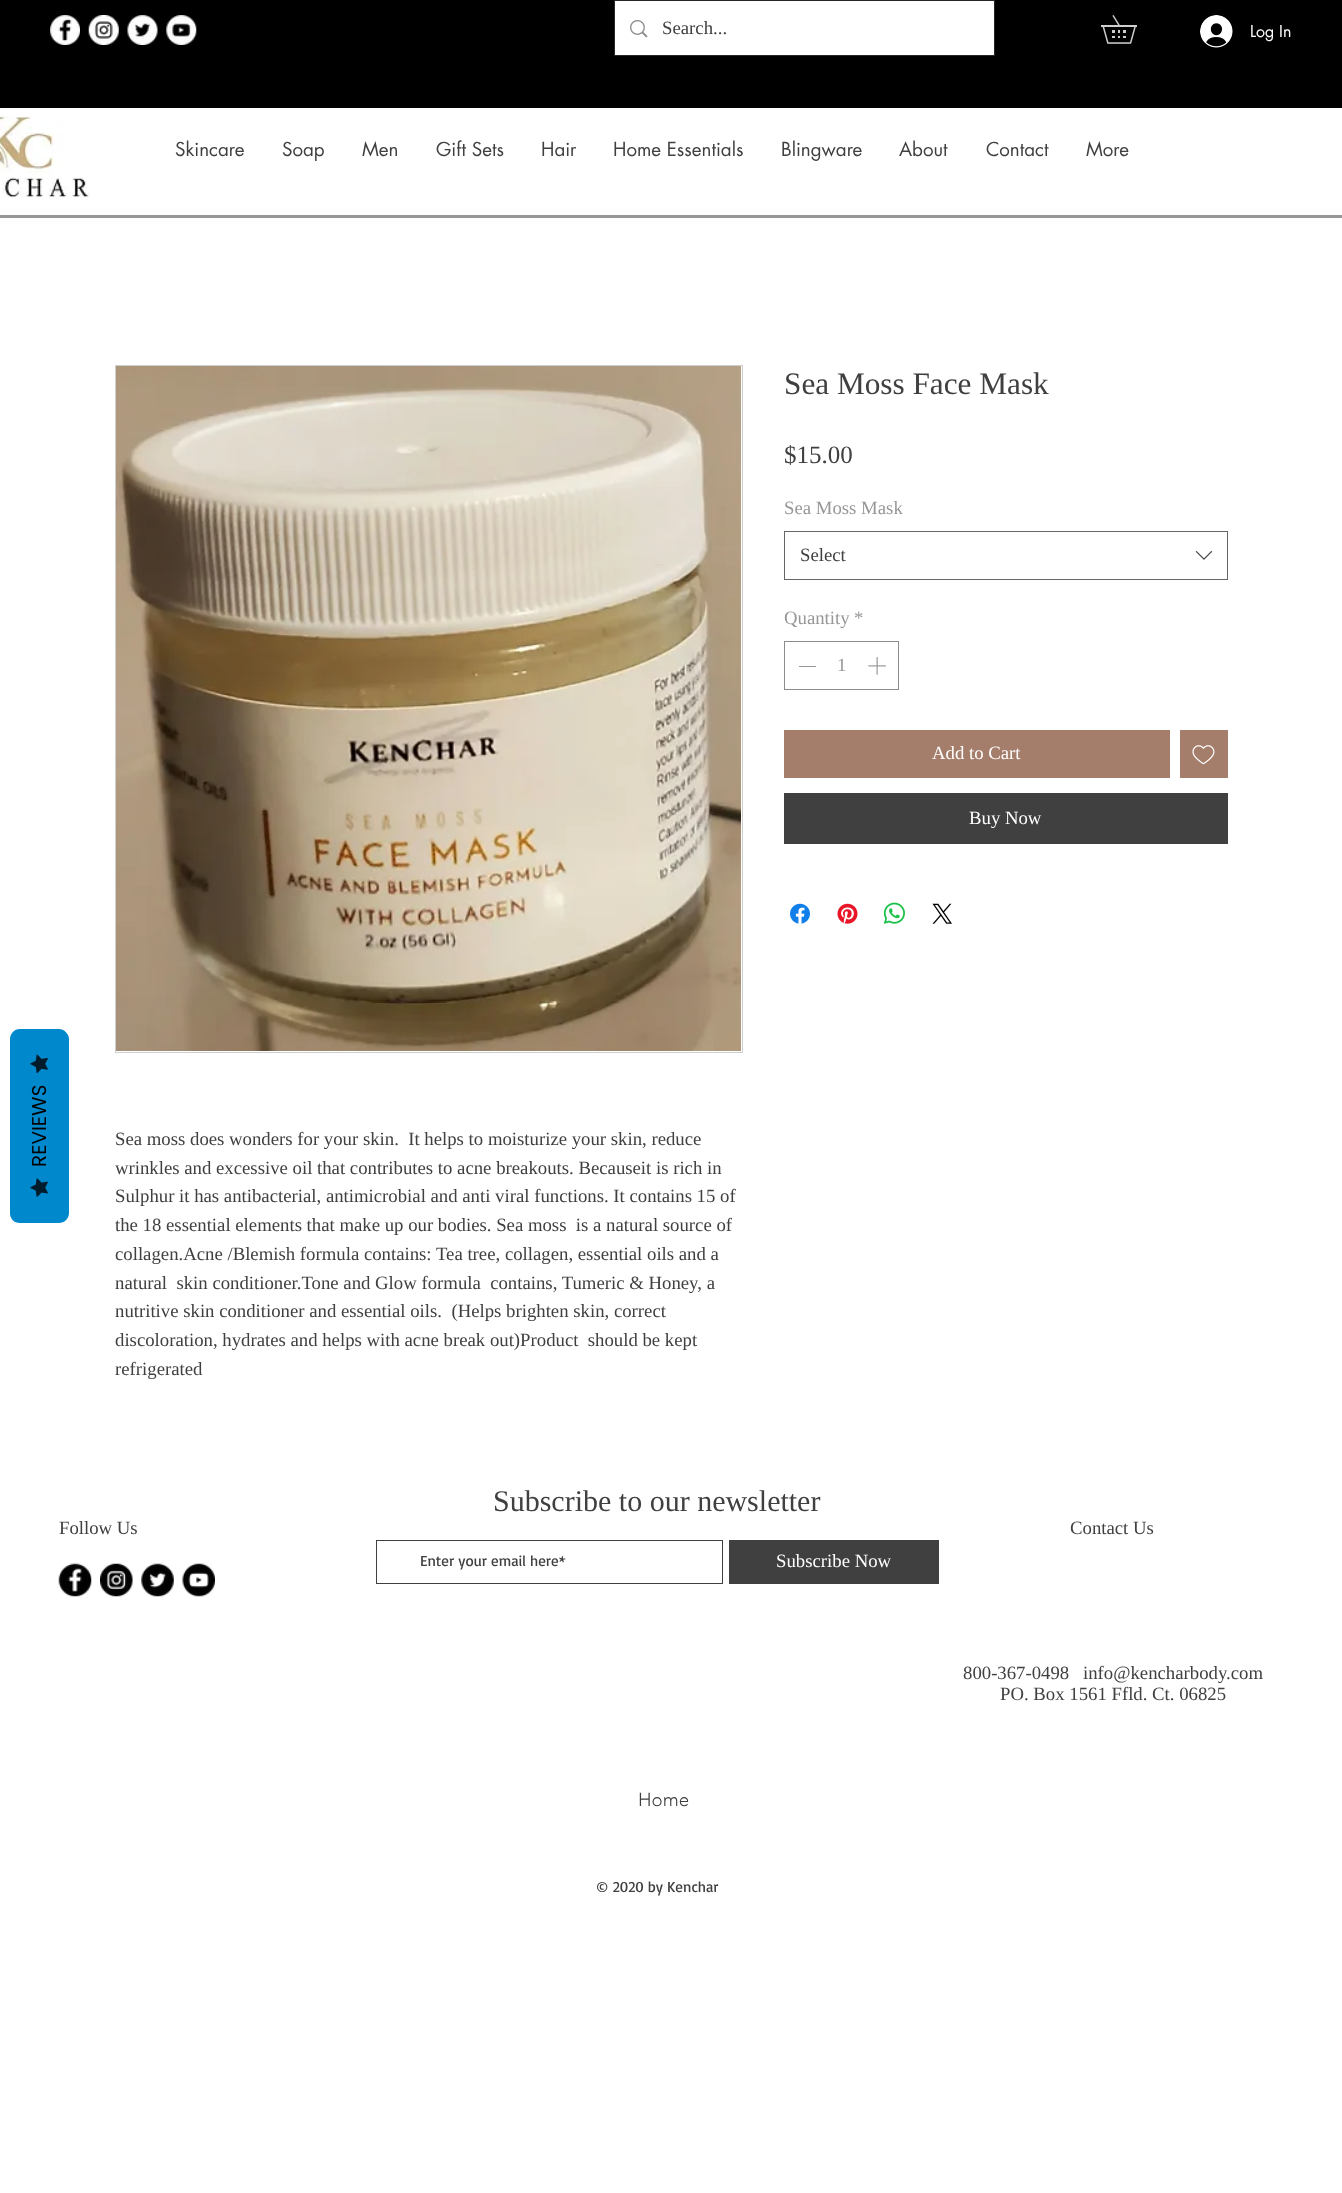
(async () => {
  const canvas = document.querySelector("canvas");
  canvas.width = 1342;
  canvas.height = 2193;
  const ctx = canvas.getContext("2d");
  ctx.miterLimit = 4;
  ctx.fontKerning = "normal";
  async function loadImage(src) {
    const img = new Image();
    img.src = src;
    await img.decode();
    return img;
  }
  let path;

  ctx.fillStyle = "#ffffff";
  ctx.fillRect(0, 0, 1342, 2193);
  ctx.fillStyle = "#0088cc";
  path = new Path2D("M10 1213V1039C10 1034 14 1029 20 1029H59C64 1029 69 1034 69 1039V1213C69 1219 64 1223 59 1223H20C14 1223 10 1219 10 1213Z");
  ctx.fill(path);
  ctx.drawImage(await loadImage("img/1.png"), 30, 1054, 18, 19);
  ctx.drawImage(await loadImage("img/2.png"), 30, 1178, 18, 19);
  ctx.fillStyle = "#000000";
  ctx.fillRect(0, 0, 1342, 108);
  ctx.drawImage(await loadImage("img/3.png"), 50, 15, 30, 30);
  ctx.drawImage(await loadImage("img/4.png"), 88, 15, 31, 30);
  ctx.drawImage(await loadImage("img/5.png"), 127, 15, 31, 30);
  ctx.drawImage(await loadImage("img/6.png"), 166, 15, 31, 30);
  ctx.strokeStyle = "#262627";
  ctx.strokeRect(614.5, 0.5, 380, 55);
  ctx.fillStyle = "#ffffff";
  ctx.fillRect(615, 1, 379, 54);
  ctx.drawImage(await loadImage("img/7.png"), 630, 20, 18, 18);
  ctx.drawImage(await loadImage("img/8.png"), 1101, 15, 36, 29);
  ctx.drawImage(await loadImage("img/9.png"), 1200, 15, 33, 33);
  ctx.drawImage(await loadImage("img/10.png"), 0, 116, 90, 82);
  ctx.fillStyle = "#979797";
  ctx.fillRect(0, 215, 1342, 3);
  ctx.strokeStyle = "#666666";
  ctx.strokeRect(784.5, 531.5, 443, 48);
  ctx.drawImage(await loadImage("img/11.png"), 1195, 550, 18, 10);
  ctx.strokeStyle = "#8c8c8d";
  ctx.strokeRect(784.5, 641.5, 114, 48);
  ctx.fillRect(799, 666, 17, 1);
  ctx.drawImage(await loadImage("img/12.png"), 868, 657, 18, 18);
  ctx.fillStyle = "#a57d6b";
  ctx.fillRect(784, 730, 386, 48);
  ctx.fillRect(1180, 730, 48, 48);
  ctx.drawImage(await loadImage("img/13.png"), 1192, 745, 23, 20);
  ctx.fillStyle = "#404041";
  ctx.fillRect(784, 793, 444, 51);
  ctx.drawImage(await loadImage("img/14.png"), 790, 903, 20, 21);
  ctx.drawImage(await loadImage("img/15.png"), 837, 903, 21, 21);
  ctx.drawImage(await loadImage("img/16.png"), 883, 902, 22, 22);
  ctx.drawImage(await loadImage("img/17.png"), 932, 903, 20, 21);
  ctx.strokeStyle = "#cececf";
  ctx.strokeRect(115.5, 365.5, 627, 687);
  ctx.drawImage(await loadImage("img/18.png"), 116, 366, 625, 685);
  ctx.strokeStyle = "#404041";
  ctx.strokeRect(376.5, 1540.5, 346, 43);
  ctx.fillRect(729, 1540, 210, 44);
  ctx.drawImage(await loadImage("img/19.png"), 58, 1563, 34, 34);
  ctx.drawImage(await loadImage("img/20.png"), 100, 1563, 33, 34);
  ctx.drawImage(await loadImage("img/21.png"), 141, 1563, 33, 34);
  ctx.drawImage(await loadImage("img/22.png"), 182, 1563, 33, 34);
  ctx.font = "20px Poppins";
  ctx.fillStyle = "#000000";
  ctx.save();
  ctx.translate(46, 1167);
  ctx.rotate(-90 * Math.PI / 180);
  ctx.fillText("REVIEWS", 0, 0);
  ctx.restore();
  ctx.font = "18.75px Liberation Serif";
  ctx.fillStyle = "#404041";
  ctx.fillText("Search...", 662, 34);
  ctx.font = "16px futura";
  ctx.fillStyle = "#ffffff";
  ctx.fillText("Log In", 1250, 37);
  ctx.font = "18.75px futura";
  ctx.fillStyle = "#404041";
  for (const [text, x, y] of [
    ["Skincare", 175, 156],
    ["Soap", 282, 156],
    ["Men", 362, 156],
    ["Gift Sets", 436, 156],
    ["Hair", 541, 156],
    ["Home Essentials", 613, 156],
    ["Blingware", 781, 156],
    ["About", 899, 156],
    ["Contact", 986, 156],
    ["More", 1086, 156],
  ]) {
    ctx.fillText(text, x, y);
  }
  ctx.font = "31.25px Liberation Serif";
  ctx.fillText("Sea Moss Face Mask", 784, 394);
  ctx.font = "25px Liberation Serif";
  ctx.fillText("$15.00", 784, 463);
  ctx.font = "18.75px Liberation Serif";
  ctx.fillStyle = "#979797";
  ctx.fillText("Sea Moss Mask", 784, 514);
  ctx.fillStyle = "#404041";
  ctx.fillText("Select", 800, 561);
  ctx.fillStyle = "#979797";
  for (const [text, x, y] of [
    ["Quantity", 784, 624],
    ["*", 854, 624],
    ["1", 837, 671],
  ]) {
    ctx.fillText(text, x, y);
  }
  ctx.fillStyle = "#ffffff";
  ctx.fillText("Add to Cart", 932, 759);
  ctx.fillText("Buy Now", 969, 824);
  ctx.fillStyle = "#404041";
  for (const [text, x, y] of [
    ["Sea moss does wonders for your skin.  It helps to moisturize your skin, reduce", 115, 1145],
    ["wrinkles and excessive oil that contributes to acne breakouts. Becauseit is rich in", 115, 1174],
    ["Sulphur it has antibacterial, antimicrobial and anti viral functions. It contains 15 of", 115, 1202],
    ["the 18 essential elements that make up our bodies. Sea moss  is a natural source of", 115, 1231],
    ["collagen.Acne /Blemish formula contains: Tea tree, collagen, essential oils and a", 115, 1260],
    ["natural  skin conditioner.Tone and Glow formula  contains, Tumeric & Honey, a", 115, 1289],
    ["nutritive skin conditioner and essential oils.  (Helps brighten skin, correct", 115, 1317],
    ["discoloration, hydrates and helps with acne break out)Product  should be kept", 115, 1346],
    ["refrigerated", 115, 1375],
    ["Follow Us", 59, 1534],
  ]) {
    ctx.fillText(text, x, y);
  }
  ctx.font = "30px Liberation Serif";
  ctx.fillText("Subscribe to our newsletter", 493, 1511);
  ctx.font = "15px Basic";
  ctx.fillText("Enter your email here*", 420, 1566);
  ctx.font = "18.75px Liberation Serif";
  ctx.fillStyle = "#ffffff";
  ctx.fillText("Subscribe Now", 776, 1567);
  ctx.fillStyle = "#404041";
  for (const [text, x, y] of [
    ["Contact Us", 1070, 1534],
    ["800-367-0498", 963, 1679],
    ["info@kencharbody.com", 1083, 1679],
    ["PO. Box 1561 Ffld. Ct. 06825", 1000, 1700],
  ]) {
    ctx.fillText(text, x, y);
  }
  ctx.font = "300 18.75px 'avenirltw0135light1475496'";
  ctx.fillText("Home", 638, 1806);
  ctx.font = "15px Basic";
  ctx.fillText("© 2020 by Kenchar", 596, 1892);
})();
